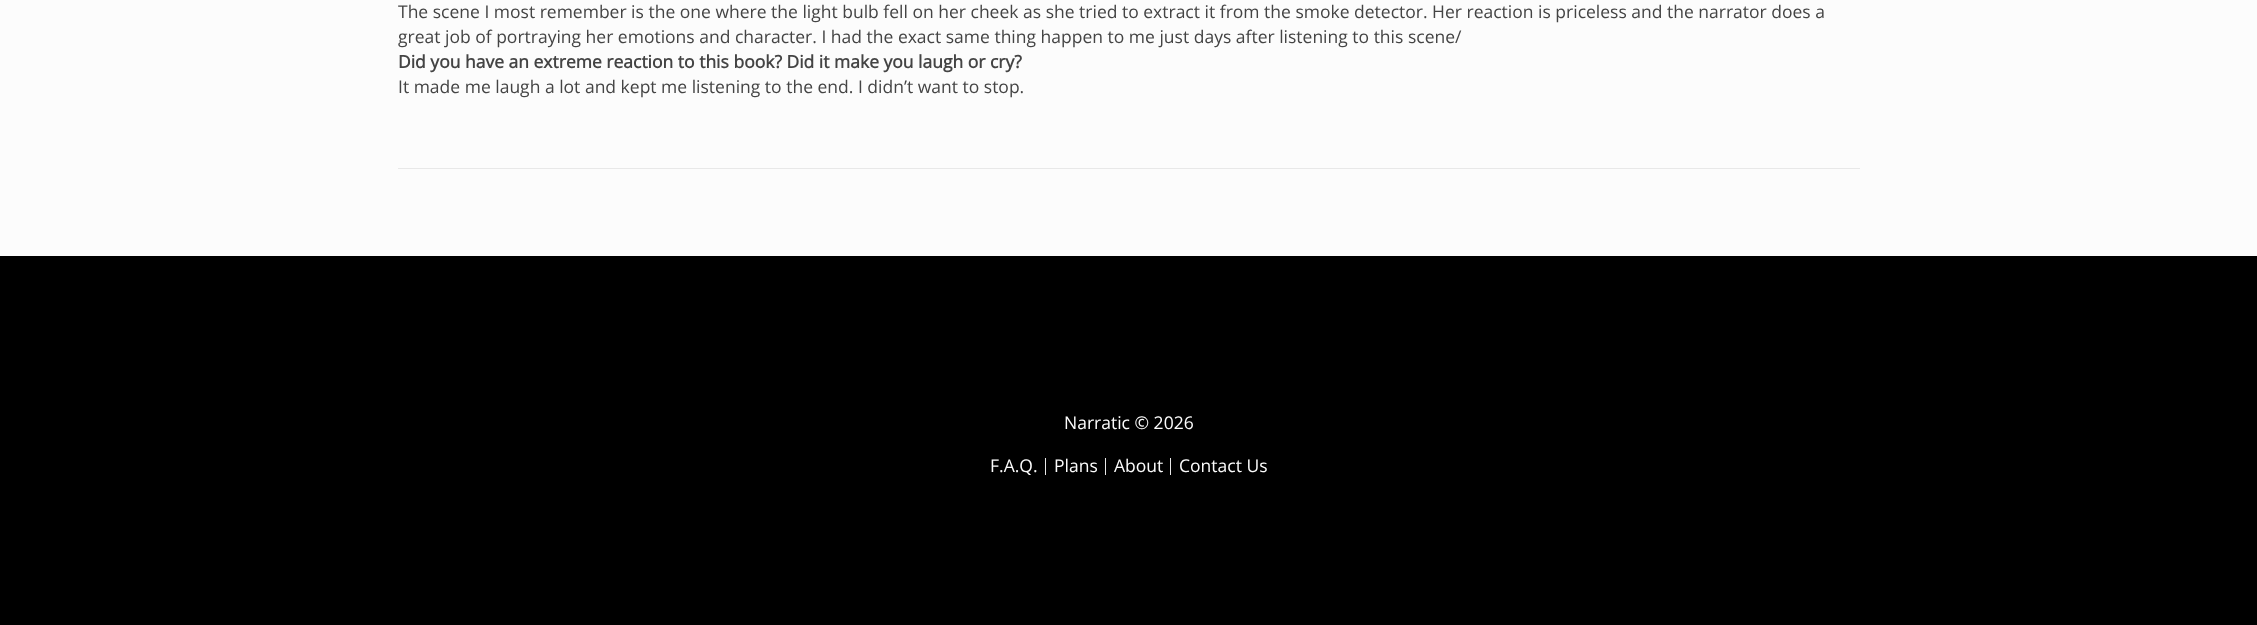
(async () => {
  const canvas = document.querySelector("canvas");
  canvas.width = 2257;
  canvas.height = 625;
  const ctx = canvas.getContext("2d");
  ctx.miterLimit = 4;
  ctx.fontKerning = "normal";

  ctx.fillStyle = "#fcfcfc";
  ctx.fillRect(0, 0, 2257, 625);
  for (const [x, y, w, h, color] of [
    [398, 168, 1462, 1, "#e8e8e8"],
    [0, 256, 2257, 369, "#000000"],
    [1045, 458, 1, 17, "#e8e8e8"],
    [1105, 458, 1, 17, "#e8e8e8"],
    [1170, 458, 1, 17, "#e8e8e8"],
  ]) {
    ctx.fillStyle = color;
    ctx.fillRect(x, y, w, h);
  }
  ctx.font = "17.5px Open Sans";
  ctx.fillStyle = "#444444";
  ctx.fillText("The scene I most remember is the one where the light bulb fell on her cheek as she tried to extract it from the smoke detector. Her reaction is priceless and the narrator does a", 398, 18);
  ctx.fillText("great job of portraying her emotions and character. I had the exact same thing happen to me just days after listening to this scene/", 398, 43);
  ctx.font = "bold 17.5px Open Sans";
  ctx.fillText("Did you have an extreme reaction to this book? Did it make you laugh or cry?", 398, 68);
  ctx.font = "17.5px Open Sans";
  ctx.fillText("It made me laugh a lot and kept me listening to the end. I didn’t want to stop.", 398, 93);
  ctx.fillStyle = "#fcfcfc";
  for (const [text, x, y] of [
    ["Narratic © 2026", 1064, 429],
    ["F.A.Q.", 990, 472],
    ["Plans", 1054, 472],
    ["About", 1114, 472],
    ["Contact Us", 1179, 472],
  ]) {
    ctx.fillText(text, x, y);
  }
})();
